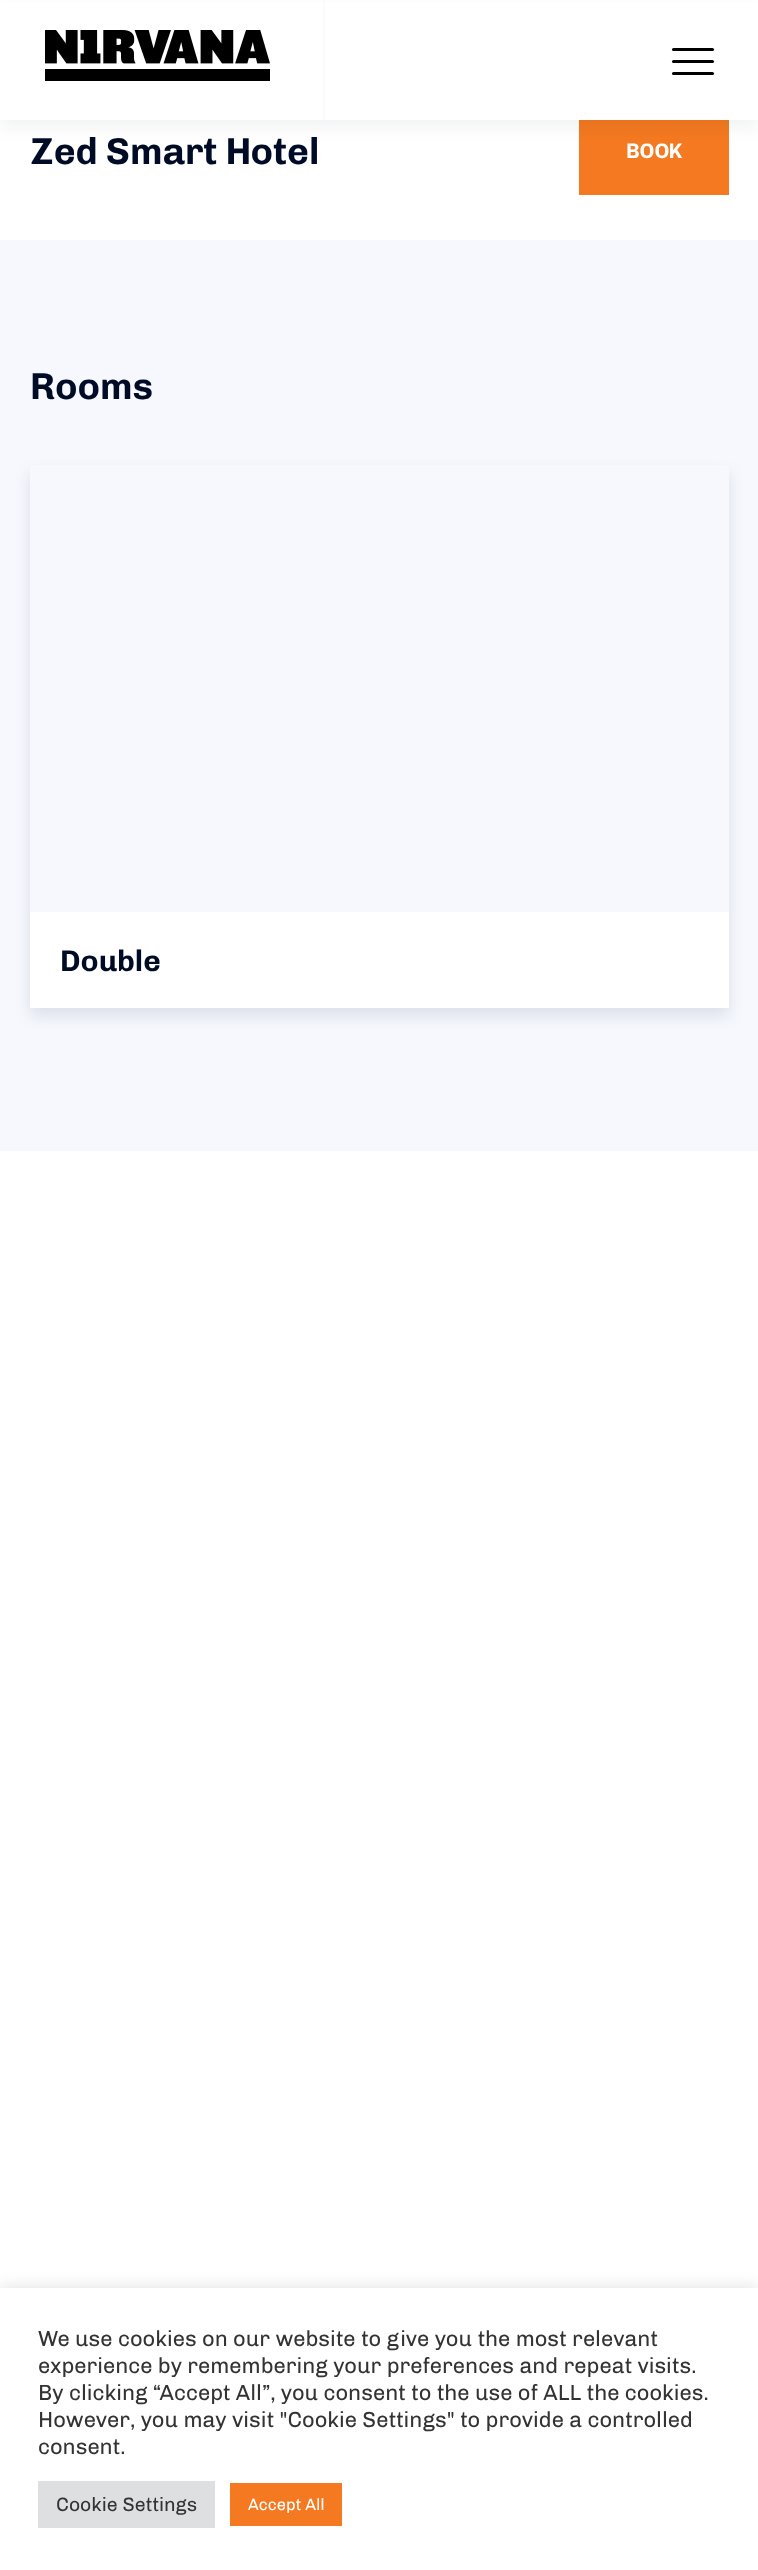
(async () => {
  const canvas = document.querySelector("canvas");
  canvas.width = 758;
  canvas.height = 2570;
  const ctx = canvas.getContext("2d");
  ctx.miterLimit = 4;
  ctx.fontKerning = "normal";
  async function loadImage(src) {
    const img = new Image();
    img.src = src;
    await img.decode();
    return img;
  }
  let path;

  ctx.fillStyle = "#ffffff";
  ctx.fillRect(0, 0, 758, 2570);
  ctx.fillStyle = "#f47920";
  ctx.fillRect(579, 120, 150, 75);
  ctx.fillStyle = "rgba(0, 12, 38, 0.05)";
  ctx.filter = "blur(7.5px)";
  ctx.beginPath();
  ctx.rect(0, 8, 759, 120);
  ctx.fill();
  ctx.filter = "none";
  ctx.fillStyle = "#ffffff";
  ctx.fillRect(0, 2, 758, 118);
  ctx.fillStyle = "#fafbfe";
  ctx.fillRect(323, 0, 2, 120);
  ctx.drawImage(await loadImage("img/1.png"), 45, 30, 225, 51);
  ctx.fillStyle = "#000000";
  ctx.beginPath();
  ctx.roundRect(672, 48, 42, 3, 1.5);
  ctx.fill();
  ctx.beginPath();
  ctx.roundRect(672, 60, 42, 3, 1.5);
  ctx.fill();
  ctx.beginPath();
  ctx.roundRect(672, 72, 42, 3, 1.5);
  ctx.fill();
  ctx.fillStyle = "#f6f8fe";
  ctx.fillRect(0, 240, 758, 911);
  ctx.save();
  path = new Path2D("M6 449H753V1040H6ZM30 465H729V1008H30Z");
  ctx.clip(path, "evenodd");
  ctx.fillStyle = "rgba(0, 12, 38, 0.1)";
  ctx.filter = "blur(7.5px)";
  ctx.beginPath();
  ctx.rect(30, 473, 699, 543);
  ctx.fill();
  ctx.filter = "none";
  ctx.restore();
  ctx.fillStyle = "#ffffff";
  ctx.fillRect(30, 912, 699, 96);
  ctx.fillStyle = "rgba(172, 171, 171, 0.3)";
  ctx.filter = "blur(7.5px)";
  ctx.beginPath();
  ctx.rect(0, 2286, 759, 284);
  ctx.fill();
  ctx.filter = "none";
  for (const [x, y, w, h, color] of [
    [0, 2288, 758, 282, "#ffffff"],
    [38, 2481, 177, 47, "#dedfe0"],
    [230, 2483, 112, 43, "#f47920"],
  ]) {
    ctx.fillStyle = color;
    ctx.fillRect(x, y, w, h);
  }
  ctx.font = "bold 37.5px Chivo";
  ctx.fillStyle = "#000c26";
  ctx.fillText("Zed Smart Hotel", 30, 164);
  ctx.font = "bold 21px Chivo";
  ctx.fillStyle = "#ffffff";
  ctx.fillText("BOOK", 626, 158);
  ctx.font = "bold 37.5px Chivo";
  ctx.fillStyle = "#000c26";
  ctx.fillText("Rooms", 30, 399);
  ctx.font = "bold 30px Chivo";
  ctx.fillText("Double", 60, 971);
  ctx.font = "22px Chivo";
  ctx.fillStyle = "#333333";
  for (const [text, x, y] of [
    ["We use cookies on our website to give you the most relevant", 38, 2346],
    ["experience by remembering your preferences and repeat visits.", 38, 2373],
    ["By clicking “Accept All”, you consent to the use of ALL the cookies.", 38, 2400],
    ["However, you may visit \"Cookie Settings\" to provide a controlled", 38, 2427],
    ["consent.", 38, 2454],
  ]) {
    ctx.fillText(text, x, y);
  }
  ctx.font = "19.5px Chivo";
  ctx.fillText("Cookie Settings", 56, 2511);
  ctx.font = "16.5px Chivo";
  ctx.fillStyle = "#ffffff";
  ctx.fillText("Accept All", 248, 2510);
})();
